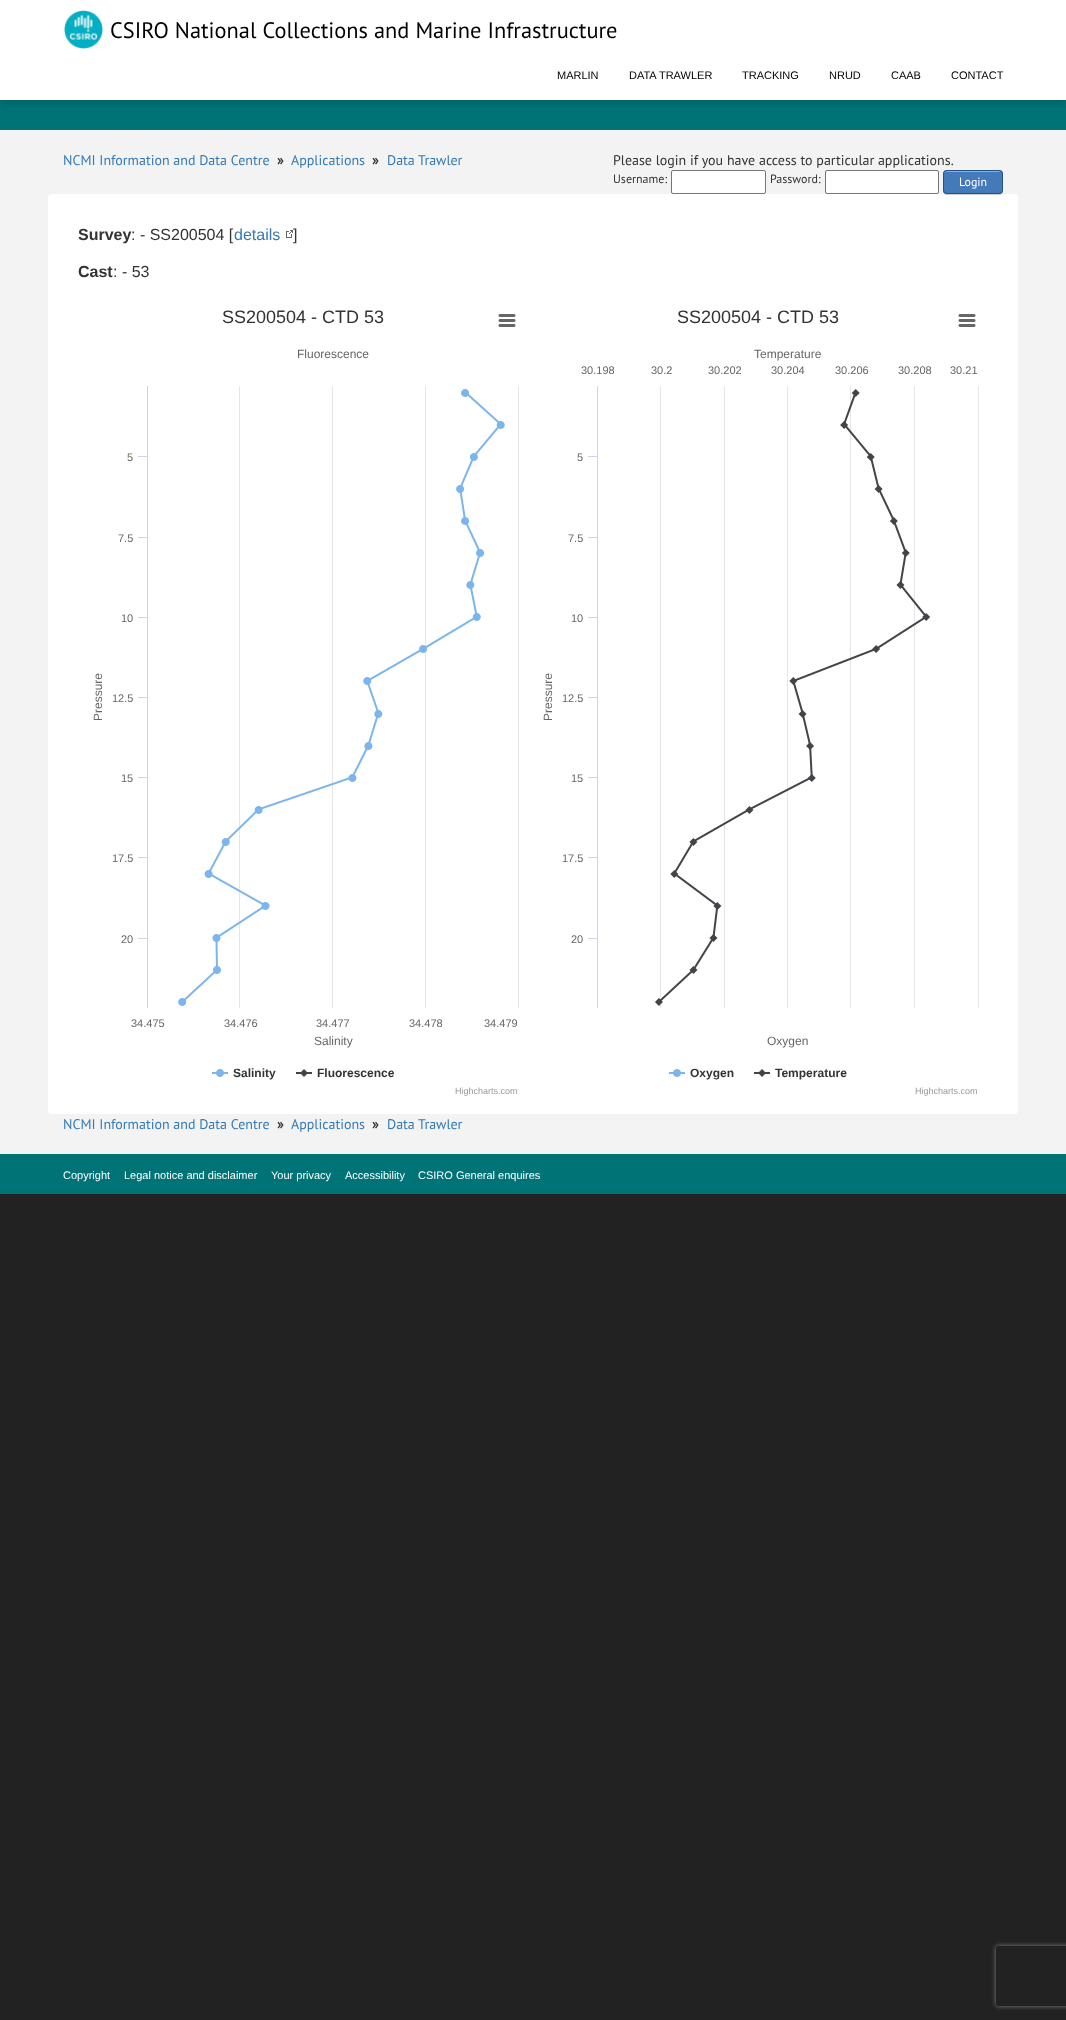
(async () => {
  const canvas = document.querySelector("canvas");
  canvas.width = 1066;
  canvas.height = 2020;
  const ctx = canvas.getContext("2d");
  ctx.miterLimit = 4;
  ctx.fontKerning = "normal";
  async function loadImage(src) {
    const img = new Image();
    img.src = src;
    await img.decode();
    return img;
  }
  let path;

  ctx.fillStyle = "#222222";
  ctx.fillRect(0, 0, 1066, 2020);
  ctx.fillStyle = "#f3f3f3";
  ctx.fillRect(0, 130, 1066, 1024);
  ctx.fillStyle = "#007377";
  ctx.fillRect(0, 100, 1066, 30);
  ctx.fillStyle = "rgba(0, 0, 0, 0.2)";
  ctx.filter = "blur(5px)";
  ctx.beginPath();
  ctx.rect(0, 2, 1066, 100);
  ctx.fill();
  ctx.filter = "none";
  ctx.fillStyle = "#ffffff";
  ctx.fillRect(0, 0, 1066, 100);
  ctx.drawImage(await loadImage("img/1.png"), 64, 10, 39, 39);
  ctx.beginPath();
  ctx.roundRect(671.5, 170.5, 94, 23, 1.5);
  ctx.fill();
  ctx.strokeStyle = "#767676";
  ctx.stroke();
  ctx.beginPath();
  ctx.roundRect(825.5, 170.5, 113, 23, 1.5);
  ctx.fill();
  ctx.stroke();
  ctx.beginPath();
  ctx.roundRect(48, 194, 970, 920, 4);
  ctx.fill();
  ctx.fillStyle = "rgba(0, 0, 0, 0.2)";
  ctx.filter = "blur(0.5px)";
  ctx.beginPath();
  ctx.roundRect(943, 171, 60, 24, 4);
  ctx.fill();
  ctx.filter = "none";
  ctx.fillStyle = "#4479ba";
  ctx.beginPath();
  ctx.roundRect(943, 170, 60, 24, 4);
  ctx.fill();
  ctx.fillStyle = "#8fafd6";
  path = new Path2D("M947 172H1000C1001 172 1002 173 1002 175C1002 169 994 171 990 171H956C954 171 944 169 944 174C944 173 945 172 947 172ZM944 191V189Z");
  ctx.fill(path, "evenodd");
  ctx.beginPath();
  ctx.roundRect(943.5, 170.5, 59, 23, 3.5);
  ctx.strokeStyle = "#20538d";
  ctx.stroke();
  ctx.save();
  path = new Path2D("M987 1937H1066V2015H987ZM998 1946H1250C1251 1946 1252 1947 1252 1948V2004C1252 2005 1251 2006 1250 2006H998C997 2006 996 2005 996 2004V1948C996 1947 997 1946 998 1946Z");
  ctx.clip(path, "evenodd");
  ctx.fillStyle = "#808080";
  ctx.filter = "blur(2.5px)";
  ctx.beginPath();
  ctx.roundRect(996, 1946, 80, 60, 2);
  ctx.fill();
  ctx.filter = "none";
  ctx.restore();
  ctx.drawImage(await loadImage("img/2.png"), 286, 230, 7, 8);
  ctx.drawImage(await loadImage("img/3.png"), 138, 314, 381, 763);
  ctx.drawImage(await loadImage("img/4.png"), 588, 314, 391, 763);
  ctx.fillStyle = "#007377";
  ctx.fillRect(0, 1154, 1066, 40);
  ctx.font = "22.4px PT Sans";
  ctx.fillStyle = "#000000";
  ctx.fillText("CSIRO National Collections and Marine Infrastructure", 110, 38);
  ctx.font = "11px Liberation Sans";
  for (const [text, x, y] of [
    ["MARLIN", 557, 79],
    ["DATA TRAWLER", 629, 79],
    ["TRACKING", 742, 79],
    ["NRUD", 829, 79],
    ["CAAB", 891, 79],
    ["CONTACT", 951, 79],
  ]) {
    ctx.fillText(text, x, y);
  }
  ctx.font = "14px PT Sans";
  ctx.fillStyle = "#337ab7";
  ctx.fillText("NCMI Information and Data Centre", 63, 165);
  ctx.font = "bold 14px PT Sans";
  ctx.fillStyle = "#333333";
  ctx.fillText("»", 277, 165);
  ctx.font = "14px PT Sans";
  ctx.fillStyle = "#337ab7";
  ctx.fillText("Applications", 291, 165);
  ctx.font = "bold 14px PT Sans";
  ctx.fillStyle = "#333333";
  ctx.fillText("»", 372, 165);
  ctx.font = "14px PT Sans";
  ctx.fillStyle = "#337ab7";
  ctx.fillText("Data Trawler", 387, 165);
  ctx.fillStyle = "#333333";
  ctx.fillText("Please login if you have access to particular applications.", 613, 165);
  ctx.font = "12px PT Sans";
  ctx.fillText("Username:", 613, 183);
  ctx.fillText("Password:", 770, 183);
  ctx.fillStyle = "#ffffff";
  ctx.fillText("Login", 959, 186);
  ctx.font = "bold 16px Liberation Sans";
  ctx.fillStyle = "#333333";
  ctx.fillText("Survey", 78, 240);
  ctx.font = "16px Liberation Sans";
  ctx.fillText(": - SS200504 [", 131, 240);
  ctx.fillStyle = "#337ab7";
  ctx.fillText("details", 234, 240);
  ctx.fillStyle = "#333333";
  ctx.fillText("]", 293, 240);
  ctx.font = "bold 16px Liberation Sans";
  ctx.fillText("Cast", 78, 277);
  ctx.font = "16px Liberation Sans";
  ctx.fillText(": - 53", 113, 277);
  ctx.font = "18px Liberation Sans";
  ctx.fillText("SS200504 - CTD 53", 222, 323);
  ctx.font = "12px Liberation Sans";
  ctx.fillStyle = "#666666";
  ctx.fillText("Fluorescence", 297, 358);
  ctx.font = "11px Liberation Sans";
  for (const [text, x, y] of [
    ["5", 127, 461],
    ["7.5", 118, 542],
    ["10", 121, 622],
  ]) {
    ctx.fillText(text, x, y);
  }
  ctx.font = "12px Liberation Sans";
  ctx.save();
  ctx.translate(102, 721);
  ctx.rotate(-90 * Math.PI / 180);
  ctx.fillText("Pressure", 0, 0);
  ctx.restore();
  ctx.font = "11px Liberation Sans";
  for (const [text, x, y] of [
    ["12.5", 112, 702],
    ["15", 121, 782],
    ["17.5", 112, 862],
    ["20", 121, 943],
    ["34.475", 131, 1027],
    ["34.476", 224, 1027],
    ["34.477", 316, 1027],
    ["34.478", 409, 1027],
    ["34.479", 484, 1027],
  ]) {
    ctx.fillText(text, x, y);
  }
  ctx.font = "12px Liberation Sans";
  ctx.fillText("Salinity", 314, 1045);
  ctx.font = "bold 12px Liberation Sans";
  ctx.fillStyle = "#333333";
  ctx.fillText("Salinity", 233, 1077);
  ctx.fillText("Fluorescence", 317, 1077);
  ctx.font = "9px Liberation Sans";
  ctx.fillStyle = "#999999";
  ctx.fillText("Highcharts.com", 455, 1094);
  ctx.font = "18px Liberation Sans";
  ctx.fillStyle = "#333333";
  ctx.fillText("SS200504 - CTD 53", 677, 323);
  ctx.font = "12px Liberation Sans";
  ctx.fillStyle = "#666666";
  ctx.fillText("Temperature", 754, 358);
  ctx.font = "11px Liberation Sans";
  for (const [text, x, y] of [
    ["30.198", 581, 374],
    ["30.2", 651, 374],
    ["30.202", 708, 374],
    ["30.204", 771, 374],
    ["30.206", 835, 374],
    ["30.208", 898, 374],
    ["30.21", 950, 374],
    ["5", 577, 461],
    ["7.5", 568, 542],
    ["10", 571, 622],
  ]) {
    ctx.fillText(text, x, y);
  }
  ctx.font = "12px Liberation Sans";
  ctx.save();
  ctx.translate(552, 721);
  ctx.rotate(-90 * Math.PI / 180);
  ctx.fillText("Pressure", 0, 0);
  ctx.restore();
  ctx.font = "11px Liberation Sans";
  for (const [text, x, y] of [
    ["12.5", 562, 702],
    ["15", 571, 782],
    ["17.5", 562, 862],
    ["20", 571, 943],
  ]) {
    ctx.fillText(text, x, y);
  }
  ctx.font = "12px Liberation Sans";
  ctx.fillText("Oxygen", 767, 1045);
  ctx.font = "bold 12px Liberation Sans";
  ctx.fillStyle = "#333333";
  ctx.fillText("Oxygen", 690, 1077);
  ctx.fillText("Temperature", 775, 1077);
  ctx.font = "9px Liberation Sans";
  ctx.fillStyle = "#999999";
  ctx.fillText("Highcharts.com", 915, 1094);
  ctx.font = "14px PT Sans";
  ctx.fillStyle = "#337ab7";
  ctx.fillText("NCMI Information and Data Centre", 63, 1129);
  ctx.font = "bold 14px PT Sans";
  ctx.fillStyle = "#333333";
  ctx.fillText("»", 277, 1129);
  ctx.font = "14px PT Sans";
  ctx.fillStyle = "#337ab7";
  ctx.fillText("Applications", 291, 1129);
  ctx.font = "bold 14px PT Sans";
  ctx.fillStyle = "#333333";
  ctx.fillText("»", 372, 1129);
  ctx.font = "14px PT Sans";
  ctx.fillStyle = "#337ab7";
  ctx.fillText("Data Trawler", 387, 1129);
  ctx.font = "11px Liberation Sans";
  ctx.fillStyle = "#ffffff";
  for (const [text, x, y] of [
    ["Copyright", 63, 1179],
    ["Legal notice and disclaimer", 124, 1179],
    ["Your privacy", 271, 1179],
    ["Accessibility", 345, 1179],
    ["CSIRO General enquires", 418, 1179],
  ]) {
    ctx.fillText(text, x, y);
  }
})();
